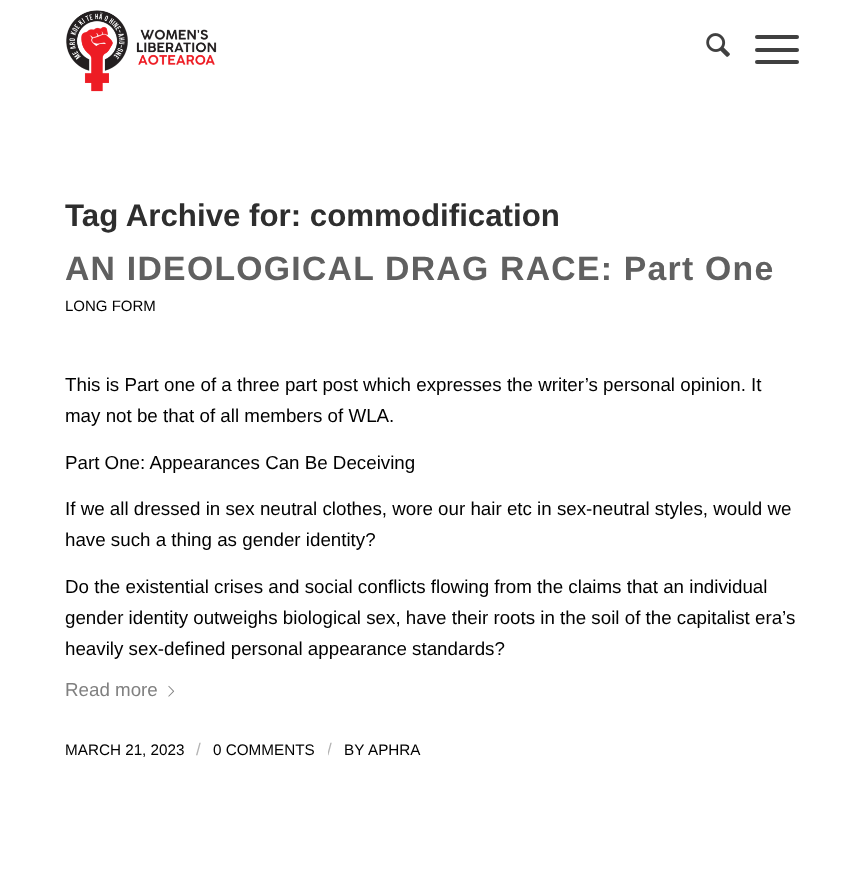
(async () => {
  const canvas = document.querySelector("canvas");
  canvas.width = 863;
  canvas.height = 878;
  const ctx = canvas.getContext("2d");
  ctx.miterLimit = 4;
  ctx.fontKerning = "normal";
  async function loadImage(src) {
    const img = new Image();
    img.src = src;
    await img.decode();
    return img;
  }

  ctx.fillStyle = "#ffffff";
  ctx.fillRect(0, 0, 863, 878);
  ctx.drawImage(await loadImage("img/1.png"), 66, 10, 151, 82);
  ctx.drawImage(await loadImage("img/2.png"), 706, 33, 24, 24);
  ctx.fillStyle = "#404040";
  ctx.beginPath();
  ctx.roundRect(755, 48, 44, 4, 2);
  ctx.fill();
  ctx.beginPath();
  ctx.roundRect(755, 35, 44, 4, 2);
  ctx.fill();
  ctx.beginPath();
  ctx.roundRect(755, 60, 44, 4, 2);
  ctx.fill();
  ctx.drawImage(await loadImage("img/3.png"), 168, 685, 7, 12);
  ctx.font = "bold 31.25px Liberation Sans";
  ctx.fillStyle = "#2e2e2e";
  ctx.fillText("Tag Archive for: commodification", 65, 226);
  ctx.letterSpacing = "1.25px";
  ctx.font = "bold 33.75px Liberation Sans";
  ctx.fillStyle = "#606060";
  ctx.fillText("AN IDEOLOGICAL DRAG RACE: Part One", 65, 280);
  ctx.letterSpacing = "0px";
  ctx.font = "15px Liberation Sans";
  ctx.fillStyle = "#000000";
  ctx.fillText("LONG FORM", 65, 311);
  ctx.font = "18.75px Liberation Sans";
  for (const [text, x, y] of [
    ["This is Part one of a three part post which expresses the writer’s personal opinion. It", 65, 391],
    ["may not be that of all members of WLA.", 65, 422],
    ["Part One: Appearances Can Be Deceiving", 65, 469],
    ["If we all dressed in sex neutral clothes, wore our hair etc in sex-neutral styles, would we", 65, 515],
    ["have such a thing as gender identity?", 65, 546],
    ["Do the existential crises and social conflicts flowing from the claims that an individual", 65, 593],
    ["gender identity outweighs biological sex, have their roots in the soil of the capitalist era’s", 65, 624],
    ["heavily sex-defined personal appearance standards?", 65, 655],
  ]) {
    ctx.fillText(text, x, y);
  }
  ctx.fillStyle = "#808080";
  ctx.fillText("Read more", 65, 696);
  ctx.font = "15.25px Liberation Sans";
  ctx.fillStyle = "#000000";
  ctx.fillText("MARCH 21, 2023", 65, 755);
  ctx.font = "17px Liberation Sans";
  ctx.fillStyle = "#b3b3b3";
  ctx.fillText("/", 196, 755);
  ctx.font = "15.25px Liberation Sans";
  ctx.fillStyle = "#000000";
  ctx.fillText("0 COMMENTS", 213, 755);
  ctx.save();
  ctx.beginPath();
  ctx.rect(328, 735, 4, 31);
  ctx.clip();
  ctx.font = "17px Liberation Sans";
  ctx.fillStyle = "#b3b3b3";
  ctx.fillText("/", 327, 755);
  ctx.restore();
  ctx.fillText("BY", 344, 755);
  ctx.fillText("APHRA", 368, 755);
})();
